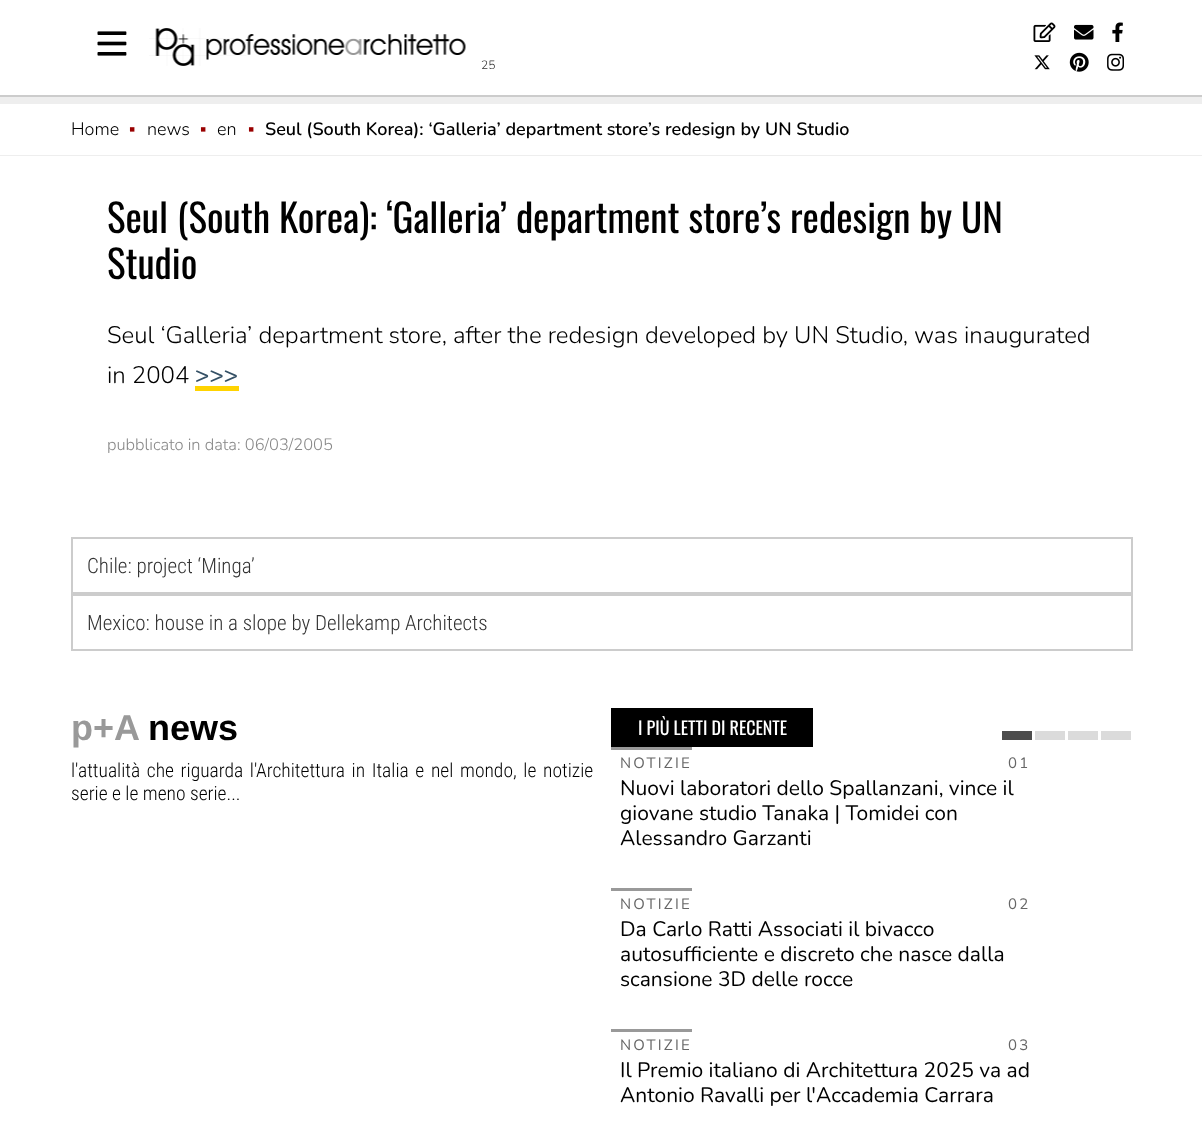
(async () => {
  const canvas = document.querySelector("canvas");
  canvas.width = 1202;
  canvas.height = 1131;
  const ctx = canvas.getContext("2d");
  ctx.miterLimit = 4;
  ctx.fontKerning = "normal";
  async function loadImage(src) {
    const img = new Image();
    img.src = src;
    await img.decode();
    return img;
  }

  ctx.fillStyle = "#eeeeee";
  ctx.fillRect(0, 0, 1202, 1131);
  ctx.fillStyle = "#ffffff";
  ctx.fillRect(0, 0, 1202, 95);
  ctx.fillStyle = "#cccccc";
  ctx.fillRect(0, 95, 1202, 2);
  ctx.drawImage(await loadImage("img/1.png"), 149, 28, 317, 38);
  ctx.drawImage(await loadImage("img/2.png"), 97, 31, 30, 25);
  ctx.drawImage(await loadImage("img/3.png"), 1033, 22, 23, 20);
  ctx.drawImage(await loadImage("img/4.png"), 1074, 24, 20, 16);
  ctx.drawImage(await loadImage("img/5.png"), 1112, 22, 11, 20);
  ctx.drawImage(await loadImage("img/6.png"), 1034, 55, 16, 15);
  ctx.drawImage(await loadImage("img/7.png"), 1069, 52, 20, 20);
  ctx.drawImage(await loadImage("img/8.png"), 1107, 53, 17, 18);
  for (const [x, y, w, h, color] of [
    [0, 104, 1202, 51, "#ffffff"],
    [0, 156, 1202, 975, "#ffffff"],
    [195, 386, 44, 5, "#ffd300"],
  ]) {
    ctx.fillStyle = color;
    ctx.fillRect(x, y, w, h);
  }
  ctx.strokeStyle = "#cccccc";
  ctx.lineWidth = 2;
  ctx.strokeRect(72, 538, 1060, 55);
  ctx.strokeRect(72, 595, 1060, 55);
  for (const [x, y, w, h, color] of [
    [611, 708, 202, 39, "#000000"],
    [1002, 731, 30, 9, "#4d4d4d"],
    [1035, 731, 30, 9, "#dbdbdb"],
    [1068, 731, 30, 9, "#dbdbdb"],
    [1101, 731, 30, 9, "#dbdbdb"],
    [611, 747, 81, 3, "#999999"],
    [611, 888, 81, 3, "#999999"],
    [611, 1029, 81, 3, "#999999"],
  ]) {
    ctx.fillStyle = color;
    ctx.fillRect(x, y, w, h);
  }
  ctx.font = "300 12px Nunito";
  ctx.fillStyle = "#333333";
  ctx.fillText("25", 481, 69);
  ctx.font = "300 18px Nunito";
  ctx.fillStyle = "#000000";
  ctx.fillText("Home", 71, 135);
  ctx.font = "bold 18px Liberation Sans";
  ctx.fillStyle = "#990000";
  ctx.fillText("▪", 129, 135);
  ctx.font = "300 18px Nunito";
  ctx.fillStyle = "#000000";
  ctx.fillText("news", 147, 135);
  ctx.font = "bold 18px Liberation Sans";
  ctx.fillStyle = "#990000";
  ctx.fillText("▪", 200, 135);
  ctx.font = "300 18px Nunito";
  ctx.fillStyle = "#000000";
  ctx.fillText("en", 217, 135);
  ctx.font = "bold 18px Liberation Sans";
  ctx.fillStyle = "#990000";
  ctx.fillText("▪", 248, 135);
  ctx.font = "600 18px Nunito";
  ctx.fillStyle = "#000000";
  ctx.fillText("Seul (South Korea): ‘Galleria’ department store’s redesign by UN Studio", 265, 135);
  ctx.font = "39px Oswald";
  ctx.fillText("Seul (South Korea): ‘Galleria’ department store’s redesign by UN", 107, 233);
  ctx.fillText("Studio", 107, 279);
  ctx.font = "300 24px Nunito";
  ctx.fillText("Seul ‘Galleria’ department store, after the redesign developed by UN Studio, was inaugurated", 107, 343);
  ctx.fillText("in 2004", 107, 383);
  ctx.font = "600 24px Nunito";
  ctx.fillStyle = "#345065";
  ctx.fillText(">>>", 195, 383);
  ctx.font = "300 16.5px Nunito";
  ctx.fillStyle = "#888888";
  ctx.fillText("pubblicato in data: 06/03/2005", 107, 450);
  ctx.font = "300 21px Roboto Condensed";
  ctx.fillStyle = "#333333";
  ctx.fillText("Chile: project ‘Minga’", 87, 573);
  ctx.fillText("Mexico: house in a slope by Dellekamp Architects", 87, 630);
  ctx.font = "bold 36px Liberation Sans";
  ctx.fillStyle = "#999999";
  ctx.fillText("p+A", 71, 740);
  ctx.fillStyle = "#000000";
  ctx.fillText("news", 148, 740);
  ctx.wordSpacing = "2.25px";
  ctx.font = "300 19.5px Roboto Condensed";
  ctx.fillText("l'attualità che riguarda l'Architettura in Italia e nel mondo, le notizie", 71, 777);
  ctx.wordSpacing = "0px";
  ctx.fillText("serie e le meno serie...", 71, 800);
  ctx.font = "18px Oswald";
  ctx.fillStyle = "#ffffff";
  ctx.fillText("I PIÙ LETTI DI RECENTE", 638, 735);
  ctx.letterSpacing = "2.25px";
  ctx.font = "15px Nunito";
  ctx.fillStyle = "#666666";
  ctx.fillText("NOTIZIE", 620, 768);
  ctx.fillText("01", 1008, 768);
  ctx.letterSpacing = "0px";
  ctx.font = "21px Nunito";
  ctx.fillStyle = "#000000";
  for (const [text, x, y] of [
    ["Nuovi laboratori dello Spallanzani, vince il", 620, 795],
    ["giovane studio Tanaka | Tomidei con", 620, 820],
    ["Alessandro Garzanti", 620, 845],
  ]) {
    ctx.fillText(text, x, y);
  }
  ctx.letterSpacing = "2.25px";
  ctx.font = "15px Nunito";
  ctx.fillStyle = "#666666";
  ctx.fillText("NOTIZIE", 620, 909);
  ctx.fillText("02", 1008, 909);
  ctx.letterSpacing = "0px";
  ctx.font = "21px Nunito";
  ctx.fillStyle = "#000000";
  for (const [text, x, y] of [
    ["Da Carlo Ratti Associati il bivacco", 620, 936],
    ["autosufficiente e discreto che nasce dalla", 620, 961],
    ["scansione 3D delle rocce", 620, 986],
  ]) {
    ctx.fillText(text, x, y);
  }
  ctx.letterSpacing = "2.25px";
  ctx.font = "15px Nunito";
  ctx.fillStyle = "#666666";
  ctx.fillText("NOTIZIE", 620, 1050);
  ctx.fillText("03", 1008, 1050);
  ctx.letterSpacing = "0px";
  ctx.font = "21px Nunito";
  ctx.fillStyle = "#000000";
  ctx.fillText("Il Premio italiano di Architettura 2025 va ad", 620, 1077);
  ctx.fillText("Antonio Ravalli per l'Accademia Carrara", 620, 1102);
})();
